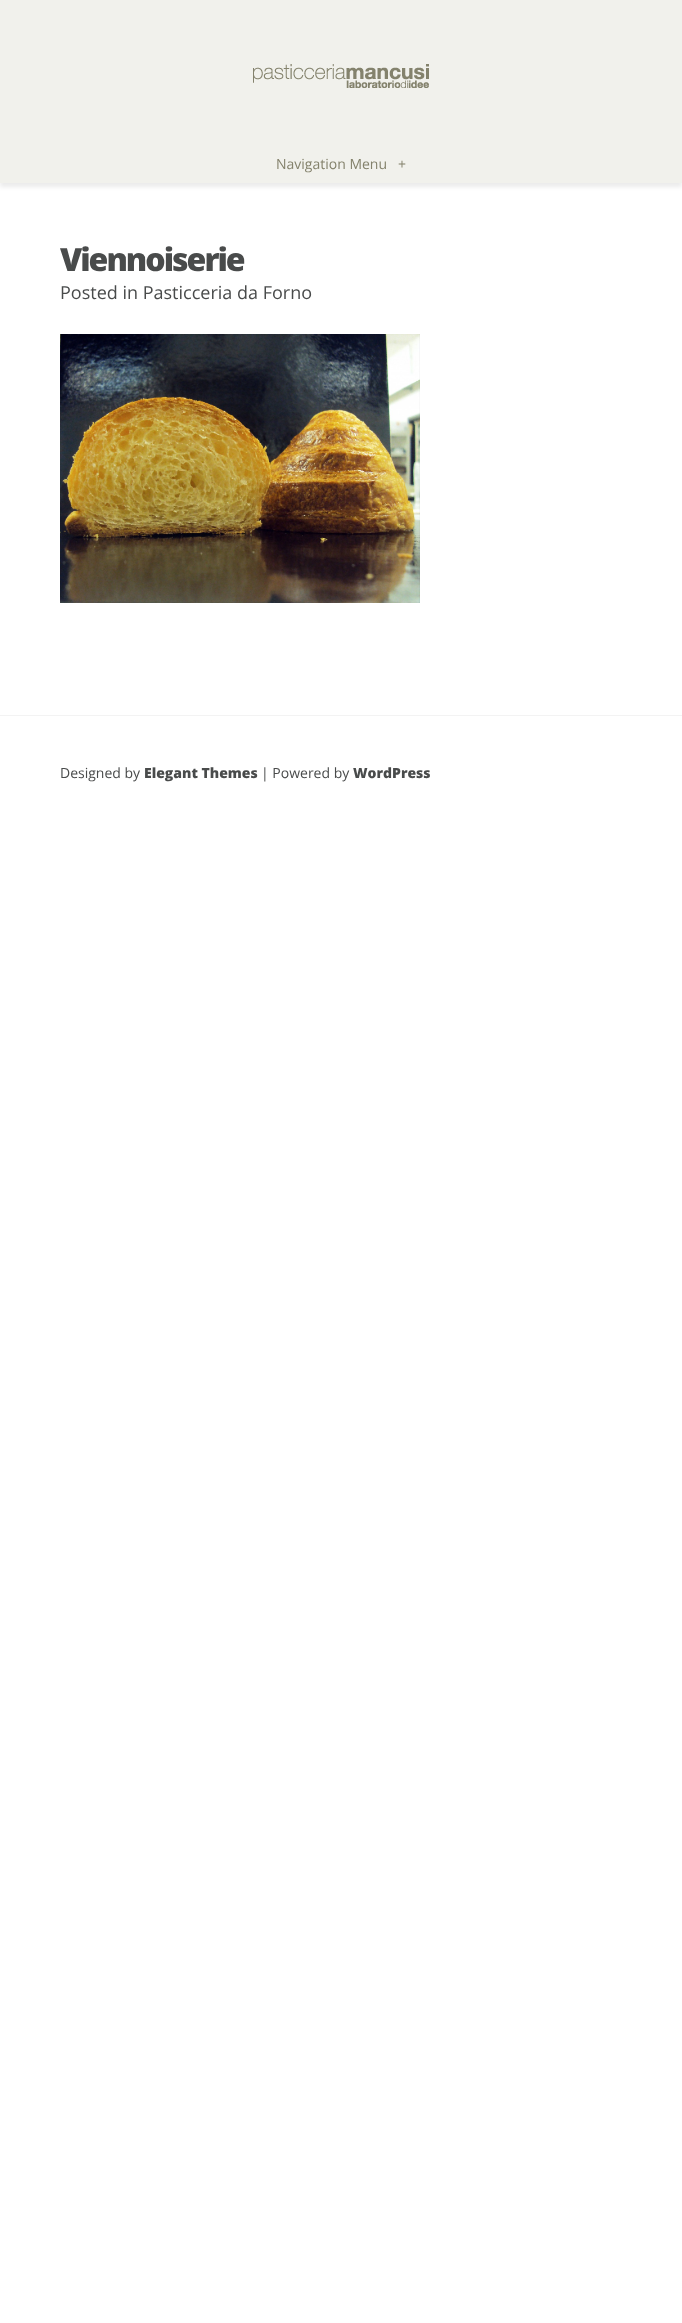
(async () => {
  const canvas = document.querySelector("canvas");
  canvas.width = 682;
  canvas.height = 2323;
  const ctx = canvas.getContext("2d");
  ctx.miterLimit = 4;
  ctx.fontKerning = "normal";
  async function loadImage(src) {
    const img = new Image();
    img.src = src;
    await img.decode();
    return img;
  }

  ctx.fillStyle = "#ffffff";
  ctx.fillRect(0, 0, 682, 2323);
  ctx.fillStyle = "rgba(0, 0, 0, 0.08)";
  ctx.filter = "blur(2px)";
  ctx.beginPath();
  ctx.rect(0, 4, 682, 183);
  ctx.fill();
  ctx.filter = "none";
  ctx.fillStyle = "#f1f1ec";
  ctx.fillRect(0, 0, 682, 183);
  ctx.drawImage(await loadImage("img/1.png"), 253, 64, 176, 24);
  ctx.drawImage(await loadImage("img/2.png"), 60, 334, 360, 269);
  ctx.fillStyle = "#f3f3f3";
  ctx.fillRect(0, 715, 682, 1);
  ctx.font = "14px Open Sans";
  ctx.fillStyle = "#84826c";
  ctx.fillText("Navigation Menu", 276, 169);
  ctx.fillText("+", 398, 169);
  ctx.letterSpacing = "-2px";
  ctx.font = "800 32px Open Sans";
  ctx.fillStyle = "#494b4b";
  ctx.fillText("Viennoiserie", 60, 271);
  ctx.letterSpacing = "0px";
  ctx.font = "18px Open Sans";
  ctx.fillText("Posted in Pasticceria da Forno", 60, 299);
  ctx.font = "14px Open Sans";
  ctx.fillText("Designed by", 60, 778);
  ctx.font = "800 14px Open Sans";
  ctx.fillText("Elegant Themes", 144, 778);
  ctx.font = "14px Open Sans";
  ctx.fillText("| Powered by", 261, 778);
  ctx.font = "800 14px Open Sans";
  ctx.fillText("WordPress", 353, 778);
})();
